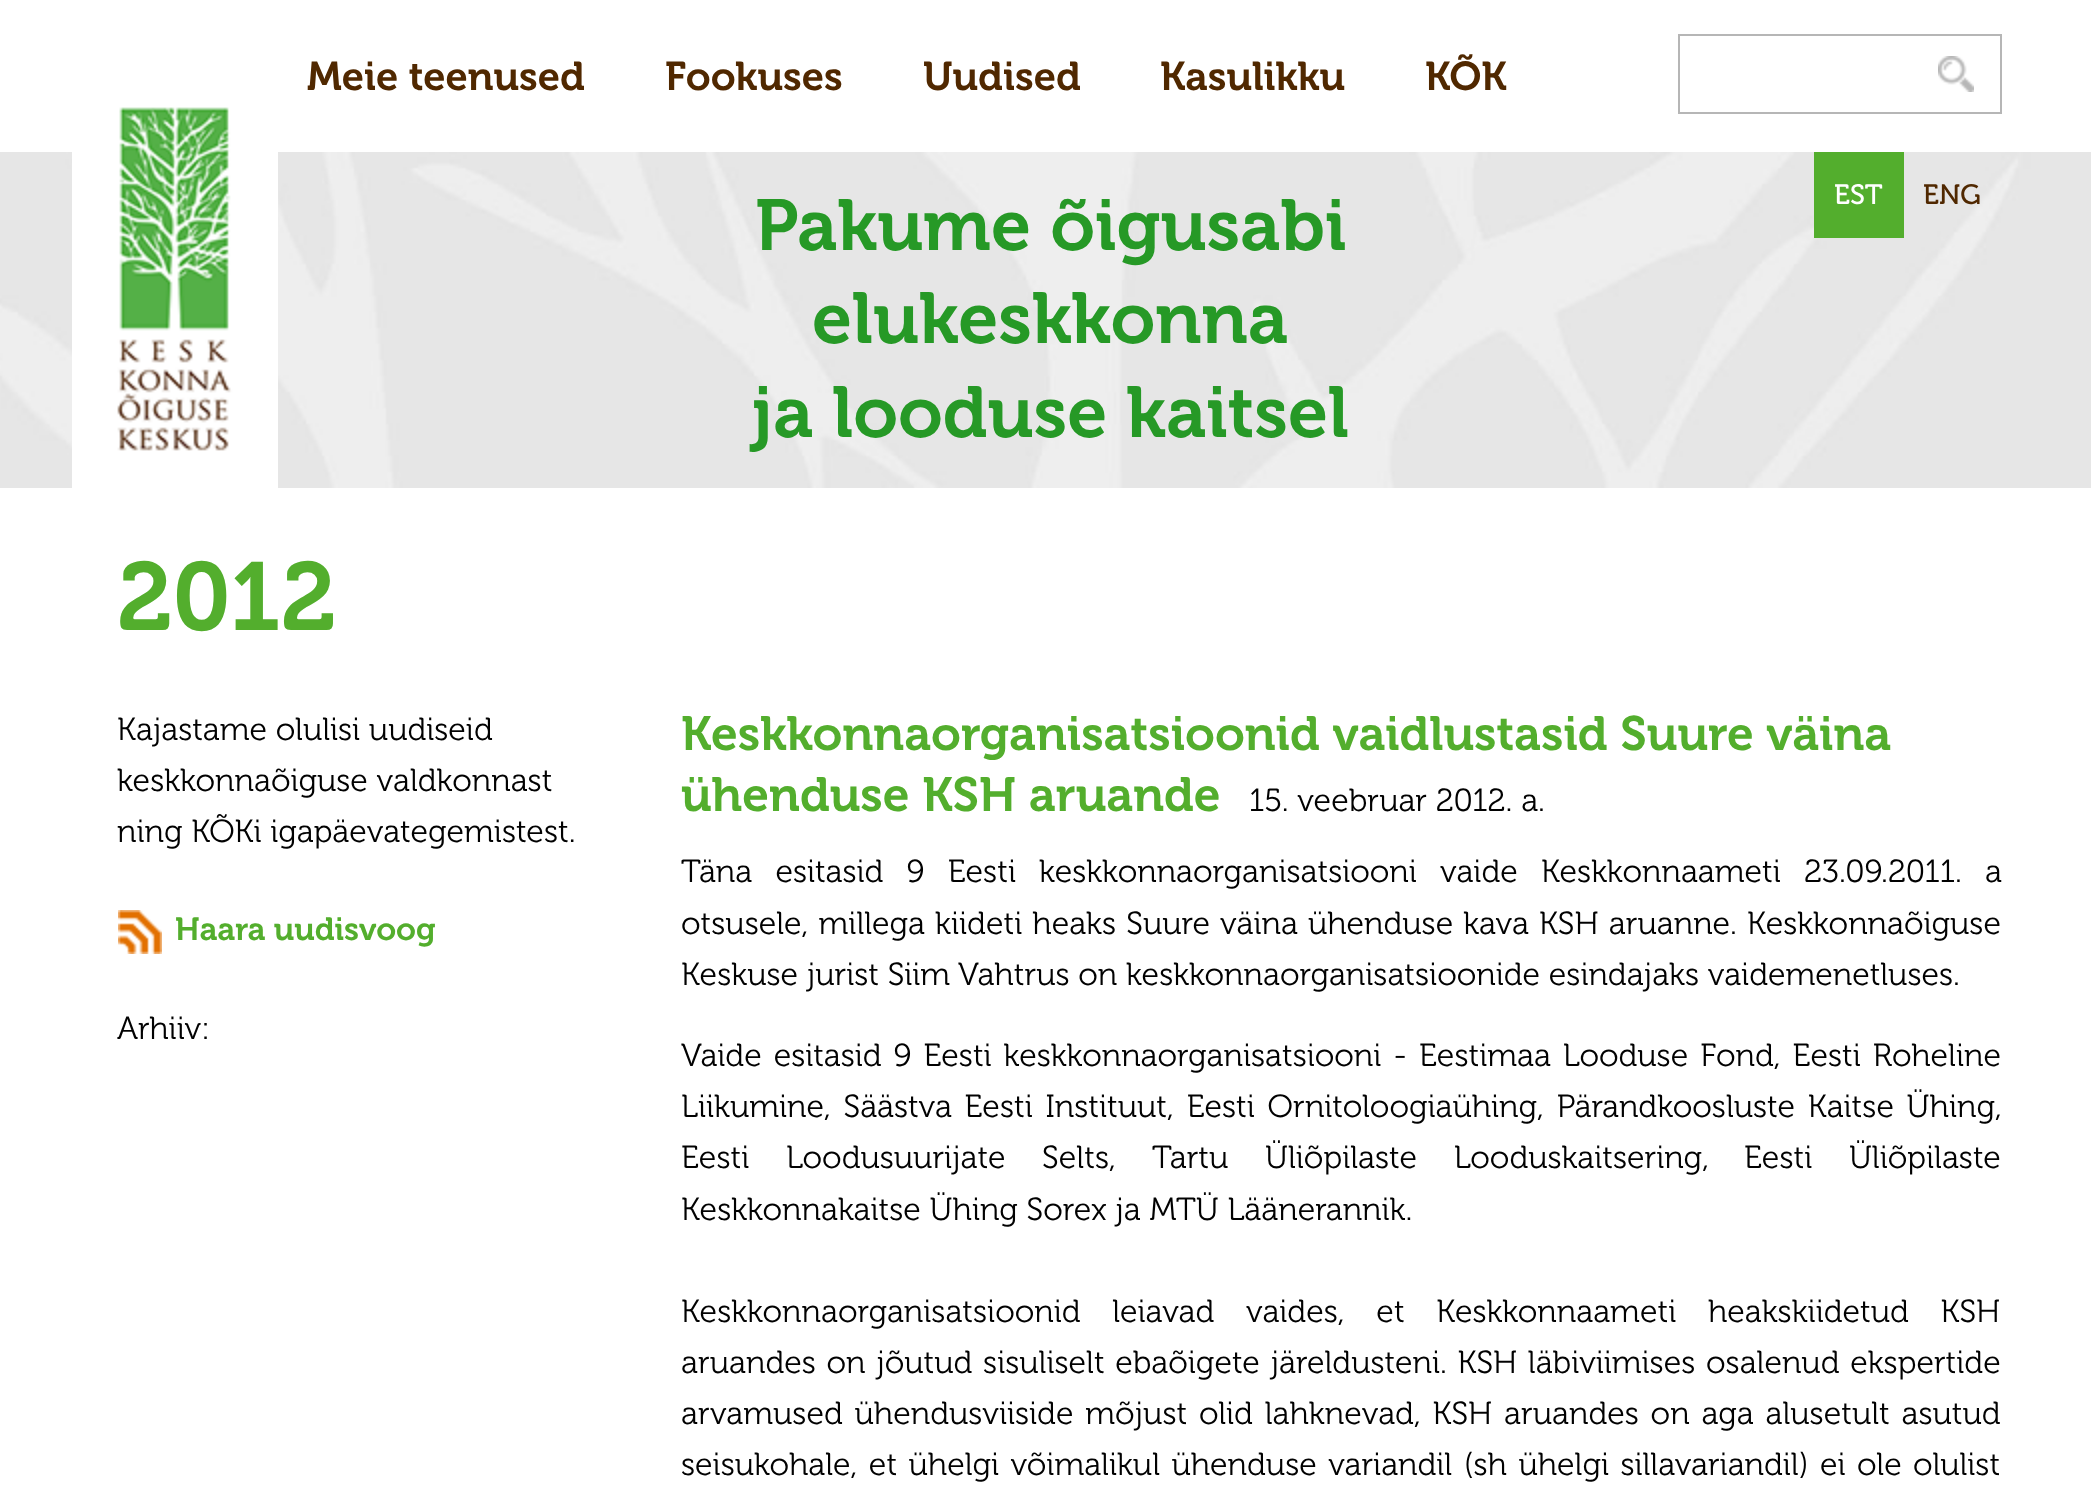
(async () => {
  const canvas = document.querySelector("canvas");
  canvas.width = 2091;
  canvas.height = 1505;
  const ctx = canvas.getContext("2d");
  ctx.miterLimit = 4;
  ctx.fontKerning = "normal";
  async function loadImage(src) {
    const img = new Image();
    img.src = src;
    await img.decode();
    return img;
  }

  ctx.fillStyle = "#ffffff";
  ctx.fillRect(0, 0, 2091, 1505);
  ctx.strokeStyle = "#b6b6b6";
  ctx.lineWidth = 2;
  ctx.strokeRect(1679, 35, 322, 78);
  ctx.drawImage(await loadImage("img/1.png"), 1938, 56, 36, 36);
  ctx.drawImage(await loadImage("img/2.png"), 0, 152, 2091, 336);
  ctx.drawImage(await loadImage("img/3.png"), 72, 107, 206, 381);
  ctx.fillStyle = "#53ae2d";
  ctx.fillRect(1814, 152, 90, 86);
  ctx.drawImage(await loadImage("img/4.png"), 118, 910, 44, 44);
  ctx.font = "600 40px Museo";
  ctx.fillStyle = "#502800";
  for (const [text, x, y] of [
    ["Meie teenused", 307, 90],
    ["Fookuses", 665, 90],
    ["Uudised", 923, 90],
    ["Kasulikku", 1160, 90],
    ["KÕK", 1425, 90],
  ]) {
    ctx.fillText(text, x, y);
  }
  ctx.font = "28px Museo";
  ctx.fillStyle = "#ffffff";
  ctx.fillText("EST", 1834, 204);
  ctx.fillStyle = "#502800";
  ctx.fillText("ENG", 1923, 204);
  ctx.font = "600 72px Museo";
  ctx.fillStyle = "#269926";
  for (const [text, x, y] of [
    ["Pakume õigusabi", 755, 250],
    ["elukeskkonna", 812, 343],
    ["ja looduse kaitsel", 751, 437],
  ]) {
    ctx.fillText(text, x, y);
  }
  ctx.font = "600 96px Museo";
  ctx.fillStyle = "#53ae2d";
  ctx.fillText("2012", 117, 630);
  ctx.font = "300 32px Museo";
  ctx.fillStyle = "#010101";
  for (const [text, x, y] of [
    ["Kajastame olulisi uudiseid", 117, 740],
    ["keskkonnaõiguse valdkonnast", 117, 791],
    ["ning KÕKi igapäevategemistest.", 117, 842],
  ]) {
    ctx.fillText(text, x, y);
  }
  ctx.font = "600 32px Museo";
  ctx.fillStyle = "#53ae2d";
  ctx.fillText("Haara uudisvoog", 175, 940);
  ctx.font = "300 32px Museo";
  ctx.fillStyle = "#010101";
  ctx.fillText("Arhiiv:", 117, 1039);
  ctx.font = "600 48px Museo";
  ctx.fillStyle = "#53ae2d";
  ctx.fillText("Keskkonnaorganisatsioonid vaidlustasid Suure väina", 681, 750);
  ctx.fillText("ühenduse KSH aruande", 681, 811);
  ctx.font = "300 32px Museo";
  ctx.fillStyle = "#010101";
  ctx.fillText("15. veebruar 2012. a.", 1249, 811);
  ctx.wordSpacing = "14.5px";
  ctx.fillText("Täna esitasid 9 Eesti keskkonnaorganisatsiooni vaide Keskkonnaameti 23.09.2011. a", 681, 882);
  ctx.wordSpacing = "1.4px";
  ctx.fillText("otsusele, millega kiideti heaks Suure väina ühenduse kava KSH aruanne. Keskkonnaõiguse", 681, 934);
  ctx.wordSpacing = "0px";
  ctx.fillText("Keskuse jurist Siim Vahtrus on keskkonnaorganisatsioonide esindajaks vaidemenetluses.", 681, 985);
  ctx.wordSpacing = "3.25px";
  ctx.fillText("Vaide esitasid 9 Eesti keskkonnaorganisatsiooni -", 681, 1066);
  ctx.fillText("Eestimaa Looduse Fond, Eesti Roheline", 1419, 1066);
  ctx.wordSpacing = "4px";
  ctx.fillText("Liikumine, Säästva Eesti Instituut, Eesti Ornitoloogiaühing, Pärandkoosluste Kaitse Ühing,", 681, 1117);
  ctx.wordSpacing = "28px";
  ctx.fillText("Eesti Loodusuurijate Selts, Tartu Üliõpilaste Looduskaitsering,", 681, 1168);
  ctx.fillText("Eesti Üliõpilaste", 1744, 1168);
  ctx.wordSpacing = "0px";
  ctx.fillText("Keskkonnakaitse Ühing Sorex ja MTÜ Läänerannik.", 681, 1220);
  ctx.wordSpacing = "23px";
  ctx.fillText("Keskkonnaorganisatsioonid leiavad vaides, et Keskkonnaameti heakskiidetud KSH", 681, 1322);
  ctx.wordSpacing = "2px";
  ctx.fillText("aruandes on jõutud sisuliselt ebaõigete järeldusteni. KSH läbiviimises osalenud ekspertide", 681, 1373);
  ctx.wordSpacing = "3.1px";
  ctx.fillText("arvamused ühendusviiside mõjust olid lahknevad, KSH aruandes on aga alusetult asutud", 681, 1424);
  ctx.wordSpacing = "2.75px";
  ctx.fillText("seisukohale, et ühelgi võimalikul ühenduse variandil (sh ühelgi sillavariandil) ei ole olulist", 681, 1475);
})();
